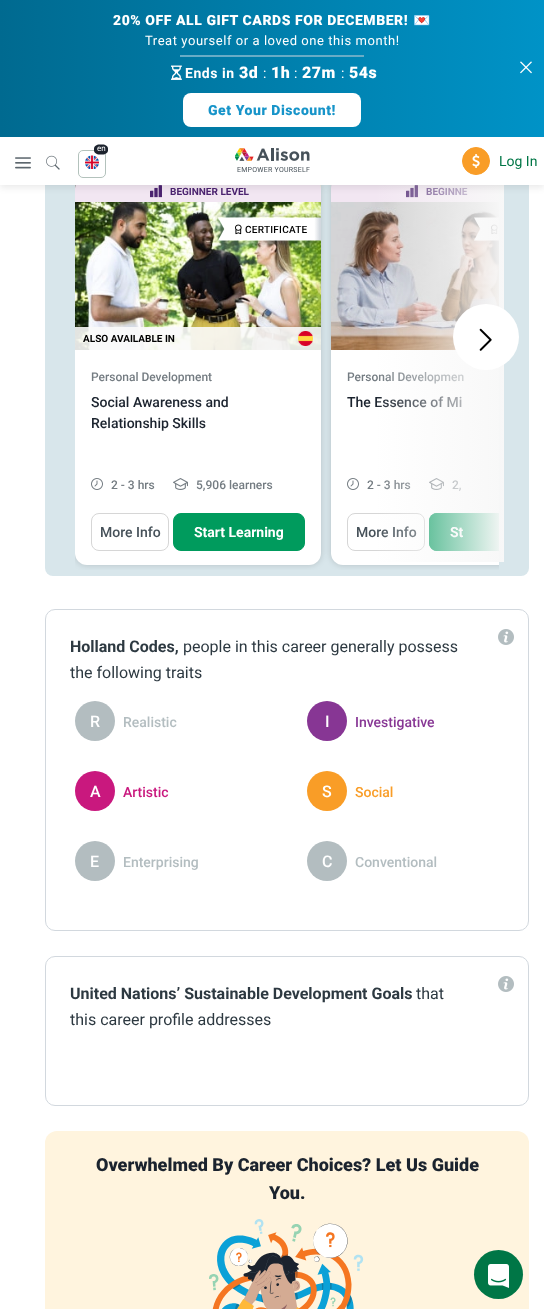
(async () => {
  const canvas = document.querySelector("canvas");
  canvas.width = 544;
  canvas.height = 1309;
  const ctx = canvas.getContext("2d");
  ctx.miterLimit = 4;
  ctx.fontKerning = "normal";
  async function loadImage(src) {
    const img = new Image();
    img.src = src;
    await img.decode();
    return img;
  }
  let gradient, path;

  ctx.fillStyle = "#ffffff";
  ctx.fillRect(0, 0, 544, 1309);
  ctx.fillStyle = "#d8e6eb";
  ctx.beginPath();
  ctx.roundRect(45, 95, 484, 481, 8);
  ctx.fill();
  ctx.save();
  ctx.beginPath();
  ctx.rect(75, 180, 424, 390);
  ctx.clip();
  ctx.fillStyle = "rgba(0, 0, 0, 0.16)";
  ctx.filter = "blur(3px)";
  ctx.beginPath();
  ctx.roundRect(75, 180, 246, 385, 12);
  ctx.fill();
  ctx.filter = "none";
  ctx.restore();
  ctx.fillStyle = "#ffffff";
  ctx.beginPath();
  ctx.roundRect(75, 180, 246, 385, 12);
  ctx.fill();
  ctx.drawImage(await loadImage("img/8.png"), 75, 185, 246, 165);
  ctx.fillStyle = "#f2e6f2";
  ctx.beginPath();
  ctx.roundRect(75, 180, 246, 22, [8, 8, 0, 0]);
  ctx.fill();
  ctx.drawImage(await loadImage("img/9.png"), 150, 185, 12, 13);
  ctx.drawImage(await loadImage("img/10.png"), 215, 213, 106, 32);
  ctx.drawImage(await loadImage("img/11.png"), 235, 224, 7, 11);
  ctx.fillStyle = "rgba(250, 250, 250, 0.9)";
  ctx.fillRect(75, 327, 246, 23);
  ctx.drawImage(await loadImage("img/12.png"), 298, 331, 15, 15);
  ctx.drawImage(await loadImage("img/13.png"), 91, 478, 12, 12);
  ctx.drawImage(await loadImage("img/14.png"), 173, 478, 15, 12);
  ctx.beginPath();
  ctx.roundRect(91.5, 513.5, 77, 37, 7.5);
  ctx.strokeStyle = "#d6d6d6";
  ctx.stroke();
  ctx.fillStyle = "#009b5d";
  ctx.beginPath();
  ctx.roundRect(173.5, 513.5, 131, 37, 7.5);
  ctx.fill();
  ctx.strokeStyle = "#009b5d";
  ctx.stroke();
  ctx.save();
  ctx.beginPath();
  ctx.rect(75, 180, 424, 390);
  ctx.clip();
  ctx.fillStyle = "rgba(0, 0, 0, 0.16)";
  ctx.filter = "blur(3px)";
  ctx.beginPath();
  ctx.roundRect(331, 180, 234, 385, 12);
  ctx.fill();
  ctx.filter = "none";
  ctx.restore();
  ctx.fillStyle = "#ffffff";
  ctx.beginPath();
  ctx.roundRect(331, 180, 168, 385, [12, 0, 0, 12]);
  ctx.fill();
  ctx.drawImage(await loadImage("img/15.png"), 331, 185, 168, 165);
  ctx.fillStyle = "#f2e6f2";
  ctx.beginPath();
  ctx.roundRect(331, 180, 168, 22, [8, 0, 0, 0]);
  ctx.fill();
  ctx.drawImage(await loadImage("img/9.png"), 406, 185, 12, 13);
  ctx.drawImage(await loadImage("img/16.png"), 471, 213, 28, 32);
  ctx.drawImage(await loadImage("img/11.png"), 491, 224, 7, 11);
  ctx.drawImage(await loadImage("img/13.png"), 347, 478, 12, 12);
  ctx.drawImage(await loadImage("img/14.png"), 429, 478, 15, 12);
  ctx.beginPath();
  ctx.roundRect(347.5, 513.5, 77, 37, 7.5);
  ctx.strokeStyle = "#d6d6d6";
  ctx.stroke();
  ctx.fillStyle = "#009b5d";
  ctx.beginPath();
  ctx.roundRect(429, 513, 70, 38, [8, 0, 0, 8]);
  ctx.fill();
  ctx.save();
  ctx.beginPath();
  ctx.rect(75, 180, 424, 390);
  ctx.clip();
  ctx.beginPath();
  ctx.roundRect(429.5, 513.5, 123, 37, 7.5);
  ctx.strokeStyle = "#009b5d";
  ctx.stroke();
  ctx.restore();
  ctx.beginPath();
  ctx.roundRect(45.5, 609.5, 483, 321, 9.5);
  ctx.strokeStyle = "#d2d8de";
  ctx.stroke();
  ctx.drawImage(await loadImage("img/18.png"), 498, 629, 16, 16);
  ctx.fillStyle = "#b3bdc0";
  ctx.beginPath();
  ctx.arc(95, 721, 20, 0, Math.PI * 2);
  ctx.fill();
  ctx.fillStyle = "#873694";
  ctx.beginPath();
  ctx.arc(327, 721, 20, 0, Math.PI * 2);
  ctx.fill();
  ctx.fillStyle = "#c9187e";
  ctx.beginPath();
  ctx.arc(95, 791, 20, 0, Math.PI * 2);
  ctx.fill();
  ctx.fillStyle = "#f99d27";
  ctx.beginPath();
  ctx.arc(327, 791, 20, 0, Math.PI * 2);
  ctx.fill();
  ctx.fillStyle = "#b3bdc0";
  ctx.beginPath();
  ctx.arc(95, 861, 20, 0, Math.PI * 2);
  ctx.fill();
  ctx.beginPath();
  ctx.arc(327, 861, 20, 0, Math.PI * 2);
  ctx.fill();
  ctx.beginPath();
  ctx.roundRect(45.5, 956.5, 483, 149, 9.5);
  ctx.stroke();
  ctx.drawImage(await loadImage("img/18.png"), 498, 976, 16, 16);
  ctx.fillStyle = "#fff4de";
  ctx.beginPath();
  ctx.roundRect(45, 1131, 484, 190, 12);
  ctx.fill();
  ctx.drawImage(await loadImage("img/19.png"), 209, 1219, 155, 90);
  ctx.fillStyle = "#007646";
  ctx.beginPath();
  ctx.arc(498.5, 1274.5, 24.5, 0, Math.PI * 2);
  ctx.fill();
  ctx.drawImage(await loadImage("img/20.png"), 488, 1264, 21, 24);
  ctx.font = "bold 10px Roboto";
  ctx.fillStyle = "#4c2370";
  ctx.fillText("BEGINNER LEVEL", 170, 195);
  ctx.letterSpacing = "0.25px";
  ctx.font = "500 10px Roboto";
  ctx.fillStyle = "#000000";
  ctx.fillText("CERTIFICATE", 245, 233);
  ctx.letterSpacing = "0px";
  ctx.font = "bold 10px Roboto";
  ctx.fillText("ALSO AVAILABLE IN", 83, 342);
  ctx.font = "500 12px Roboto";
  ctx.fillStyle = "#747c82";
  ctx.fillText("Personal Development", 91, 381);
  ctx.font = "500 14px Roboto";
  ctx.fillStyle = "#1b232e";
  ctx.fillText("Social Awareness and", 91, 407);
  ctx.fillText("Relationship Skills", 91, 428);
  ctx.font = "500 12px Roboto";
  ctx.fillStyle = "#747c82";
  ctx.fillText("2 - 3 hrs", 111, 489);
  ctx.fillText("5,906 learners", 196, 489);
  ctx.font = "500 14px Roboto";
  ctx.fillStyle = "#465159";
  ctx.fillText("More Info", 100, 537);
  ctx.font = "bold 14px Roboto";
  ctx.fillStyle = "#ffffff";
  ctx.fillText("Start Learning", 194, 537);
  ctx.font = "bold 10px Roboto";
  ctx.fillStyle = "#4c2370";
  ctx.fillText("BEGINNE", 426, 195);
  ctx.font = "500 12px Roboto";
  ctx.fillStyle = "#747c82";
  ctx.fillText("Personal Developmen", 347, 381);
  ctx.font = "500 14px Roboto";
  ctx.fillStyle = "#1b232e";
  ctx.fillText("The Essence of Mi", 347, 407);
  ctx.font = "500 12px Roboto";
  ctx.fillStyle = "#747c82";
  ctx.fillText("2 - 3 hrs", 367, 489);
  ctx.fillText("2,", 452, 489);
  ctx.font = "500 14px Roboto";
  ctx.fillStyle = "#465159";
  ctx.fillText("More Info", 356, 537);
  ctx.font = "bold 14px Roboto";
  ctx.fillStyle = "#ffffff";
  ctx.fillText("St", 450, 537);
  gradient = ctx.createLinearGradient(374, 371, 504, 371);
  gradient.addColorStop(0, "rgba(248, 248, 248, 0)");
  gradient.addColorStop(1, "#f8f8f8");
  ctx.fillStyle = gradient;
  ctx.fillRect(377, 185, 127, 377);
  ctx.fillStyle = "rgba(0, 0, 0, 0.08)";
  ctx.filter = "blur(3px)";
  ctx.beginPath();
  ctx.rect(0, 140, 544, 48);
  ctx.fill();
  ctx.filter = "none";
  gradient = ctx.createLinearGradient(544, 68, 0, 69);
  gradient.addColorStop(0, "#0093c7");
  gradient.addColorStop(1, "#006a90");
  ctx.fillStyle = gradient;
  ctx.fillRect(0, 0, 544, 137);
  ctx.drawImage(await loadImage("img/2.png"), 520, 61, 12, 13);
  ctx.drawImage(await loadImage("img/1.png"), 171, 65, 11, 15);
  ctx.fillStyle = "#ffffff";
  ctx.beginPath();
  ctx.roundRect(183, 93, 178, 34, 8);
  ctx.fill();
  ctx.letterSpacing = "0.55px";
  ctx.font = "900 14px Roboto";
  ctx.fillStyle = "#1794c9";
  ctx.fillText("Get Your Discount!", 208, 115);
  ctx.letterSpacing = "0.5px";
  ctx.font = "900 16px Roboto";
  ctx.fillStyle = "#ffffff";
  ctx.fillText("54s", 349, 78);
  ctx.letterSpacing = "0.55px";
  ctx.font = "14px Roboto";
  ctx.fillText(":", 341, 78);
  ctx.letterSpacing = "0.5px";
  ctx.font = "900 16px Roboto";
  ctx.fillText("27m", 302, 78);
  ctx.letterSpacing = "0.55px";
  ctx.font = "14px Roboto";
  ctx.fillText(":", 294, 78);
  ctx.letterSpacing = "0.5px";
  ctx.font = "900 16px Roboto";
  ctx.fillText("1h", 271, 78);
  ctx.letterSpacing = "0.55px";
  ctx.font = "14px Roboto";
  ctx.fillText(":", 263, 78);
  ctx.letterSpacing = "0.5px";
  ctx.font = "900 16px Roboto";
  ctx.fillText("3d", 239, 78);
  ctx.letterSpacing = "0.55px";
  ctx.font = "bold 14px Roboto";
  ctx.fillText("Ends in", 185, 78);
  ctx.fillStyle = "#69acc6";
  ctx.fillRect(180, 55, 184, 2);
  ctx.font = "13px Roboto";
  ctx.fillStyle = "#ffffff";
  ctx.fillText("Treat yourself or a loved one this month!", 145, 45);
  ctx.font = "bold 14px Noto Color Emoji";
  ctx.fillText("💌", 413, 25);
  ctx.font = "900 14px Roboto";
  ctx.fillText("20% OFF ALL GIFT CARDS FOR DECEMBER!", 113, 25);
  ctx.fillRect(0, 137, 544, 48);
  ctx.beginPath();
  ctx.roundRect(78.5, 150.5, 27, 27, 4.5);
  ctx.strokeStyle = "#b3c2bc";
  ctx.stroke();
  ctx.fillStyle = "#1c232e";
  path = new Path2D("M99.5 144.5H102.5C105.5 144.5 108 146.5 108 148.5V150.5C108 152.5 105.5 154.5 102.5 154.5H99.5C96.5 154.5 94 152.5 94 150.5V148.5C94 146.5 96.5 144.5 99.5 144.5Z");
  ctx.fill(path);
  ctx.letterSpacing = "0px";
  ctx.font = "8px Roboto";
  ctx.fillStyle = "#ffffff";
  ctx.fillText("en", 97, 151);
  ctx.drawImage(await loadImage("img/3.png"), 85, 155, 14, 14);
  ctx.drawImage(await loadImage("img/5.png"), 46, 155, 14, 15);
  ctx.drawImage(await loadImage("img/4.png"), 15, 157, 16, 12);
  ctx.fillStyle = "#f99d27";
  ctx.beginPath();
  ctx.arc(476, 161, 13.5, 0, Math.PI * 2);
  ctx.fill();
  ctx.strokeStyle = "#f99d27";
  ctx.stroke();
  ctx.drawImage(await loadImage("img/7.png"), 472, 154, 8, 14);
  ctx.font = "14px Roboto";
  ctx.fillStyle = "#007646";
  ctx.fillText("Log In", 499, 166);
  ctx.letterSpacing = "0.25px";
  ctx.font = "7px Roboto";
  ctx.fillStyle = "#465159";
  ctx.fillText("EMPOWER YOURSELF", 237, 172);
  ctx.drawImage(await loadImage("img/6.png"), 235, 148, 75, 13);
  ctx.fillStyle = "#ffffff";
  ctx.beginPath();
  ctx.arc(486, 337, 33, 0, Math.PI * 2);
  ctx.fill();
  ctx.drawImage(await loadImage("img/17.png"), 479, 328, 13, 23);
  ctx.letterSpacing = "0px";
  ctx.font = "bold 16px Roboto";
  ctx.fillStyle = "#2d3941";
  ctx.fillText("Holland Codes,", 70, 652);
  ctx.font = "16px Roboto";
  ctx.fillText("people in this career generally possess", 183, 652);
  ctx.fillText("the following traits", 70, 678);
  ctx.font = "500 16px Roboto";
  ctx.fillStyle = "#ffffff";
  ctx.fillText("R", 90, 727);
  ctx.font = "500 14px Roboto";
  ctx.fillStyle = "#b3bdc0";
  ctx.fillText("Realistic", 123, 727);
  ctx.font = "500 16px Roboto";
  ctx.fillStyle = "#ffffff";
  ctx.fillText("I", 325, 727);
  ctx.font = "500 14px Roboto";
  ctx.fillStyle = "#873694";
  ctx.fillText("Investigative", 355, 727);
  ctx.font = "500 16px Roboto";
  ctx.fillStyle = "#ffffff";
  ctx.fillText("A", 90, 797);
  ctx.font = "500 14px Roboto";
  ctx.fillStyle = "#c9187e";
  ctx.fillText("Artistic", 123, 797);
  ctx.font = "500 16px Roboto";
  ctx.fillStyle = "#ffffff";
  ctx.fillText("S", 322, 797);
  ctx.font = "500 14px Roboto";
  ctx.fillStyle = "#f99d27";
  ctx.fillText("Social", 355, 797);
  ctx.font = "500 16px Roboto";
  ctx.fillStyle = "#ffffff";
  ctx.fillText("E", 90, 867);
  ctx.font = "500 14px Roboto";
  ctx.fillStyle = "#b3bdc0";
  ctx.fillText("Enterprising", 123, 867);
  ctx.font = "500 16px Roboto";
  ctx.fillStyle = "#ffffff";
  ctx.fillText("C", 322, 867);
  ctx.font = "500 14px Roboto";
  ctx.fillStyle = "#b3bdc0";
  ctx.fillText("Conventional", 355, 867);
  ctx.font = "bold 16px Roboto";
  ctx.fillStyle = "#2d3941";
  ctx.fillText("United Nations’ Sustainable Development Goals", 70, 999);
  ctx.font = "16px Roboto";
  ctx.fillText("that", 416, 999);
  ctx.fillText("this career profile addresses", 70, 1025);
  ctx.font = "900 18px Roboto";
  ctx.fillStyle = "#1b232e";
  ctx.fillText("Overwhelmed By Career Choices? Let Us Guide", 96, 1171);
  ctx.fillText("You.", 269, 1199);
})();
